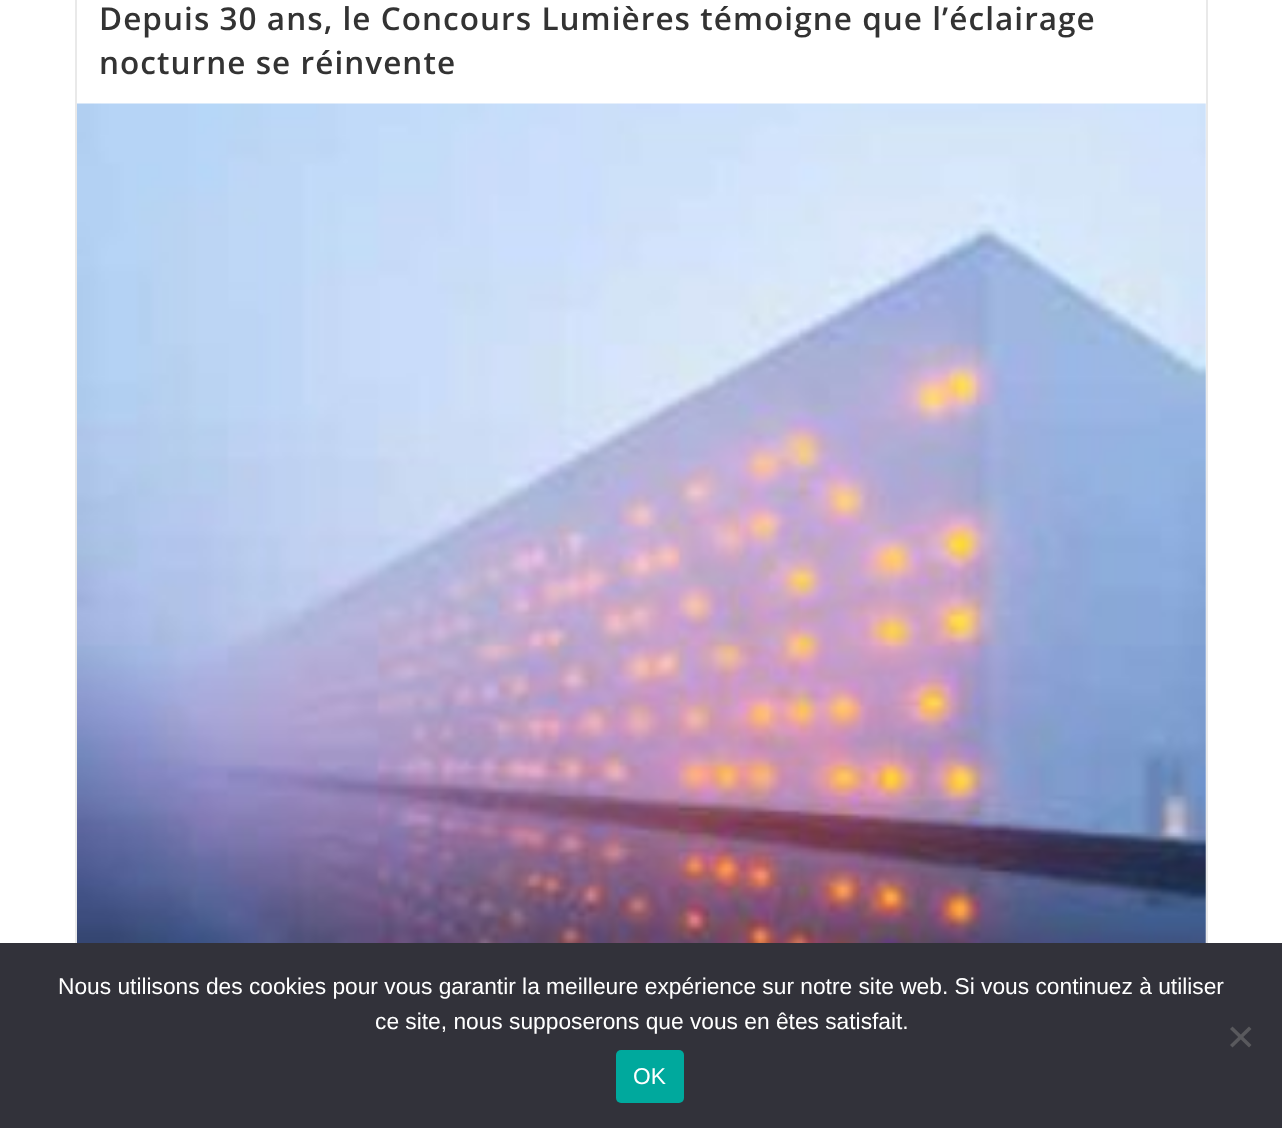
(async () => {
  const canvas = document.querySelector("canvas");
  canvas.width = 1282;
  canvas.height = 1128;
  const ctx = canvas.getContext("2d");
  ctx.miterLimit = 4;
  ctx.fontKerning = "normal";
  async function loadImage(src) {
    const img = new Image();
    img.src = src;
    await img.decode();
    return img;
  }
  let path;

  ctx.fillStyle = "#ffffff";
  ctx.fillRect(0, 0, 1282, 1128);
  ctx.strokeStyle = "#e9e9e9";
  ctx.lineWidth = 2;
  ctx.strokeRect(76, -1, 1131, 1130);
  ctx.drawImage(await loadImage("img/1.png"), 77, 103, 1129, 840);
  ctx.fillStyle = "#32323a";
  ctx.fillRect(0, 943, 1282, 185);
  ctx.fillStyle = "#59595d";
  path = new Path2D("M1249 1026.5L1251.5 1029L1232.5 1047.5L1230 1045Z");
  ctx.fill(path);
  path = new Path2D("M1230 1029L1232.5 1026.5L1251.5 1045L1249 1047.5Z");
  ctx.fill(path);
  ctx.fillStyle = "#00a99d";
  ctx.beginPath();
  ctx.roundRect(616, 1050, 68, 53, 5);
  ctx.fill();
  ctx.letterSpacing = "1.05px";
  ctx.font = "600 31.5px Open Sans";
  ctx.fillStyle = "#333333";
  ctx.fillText("Depuis 30 ans, le Concours Lumières témoigne que l’éclairage", 99, 30);
  ctx.fillText("nocturne se réinvente", 99, 74);
  ctx.letterSpacing = "0px";
  ctx.font = "22.75px Liberation Sans";
  ctx.fillStyle = "#ffffff";
  for (const [text, x, y] of [
    ["Nous utilisons des cookies pour vous garantir la meilleure expérience sur notre site web. Si vous continuez à utiliser", 58, 994],
    ["ce site, nous supposerons que vous en êtes satisfait.", 375, 1029],
    ["OK", 633, 1084],
  ]) {
    ctx.fillText(text, x, y);
  }
})();
